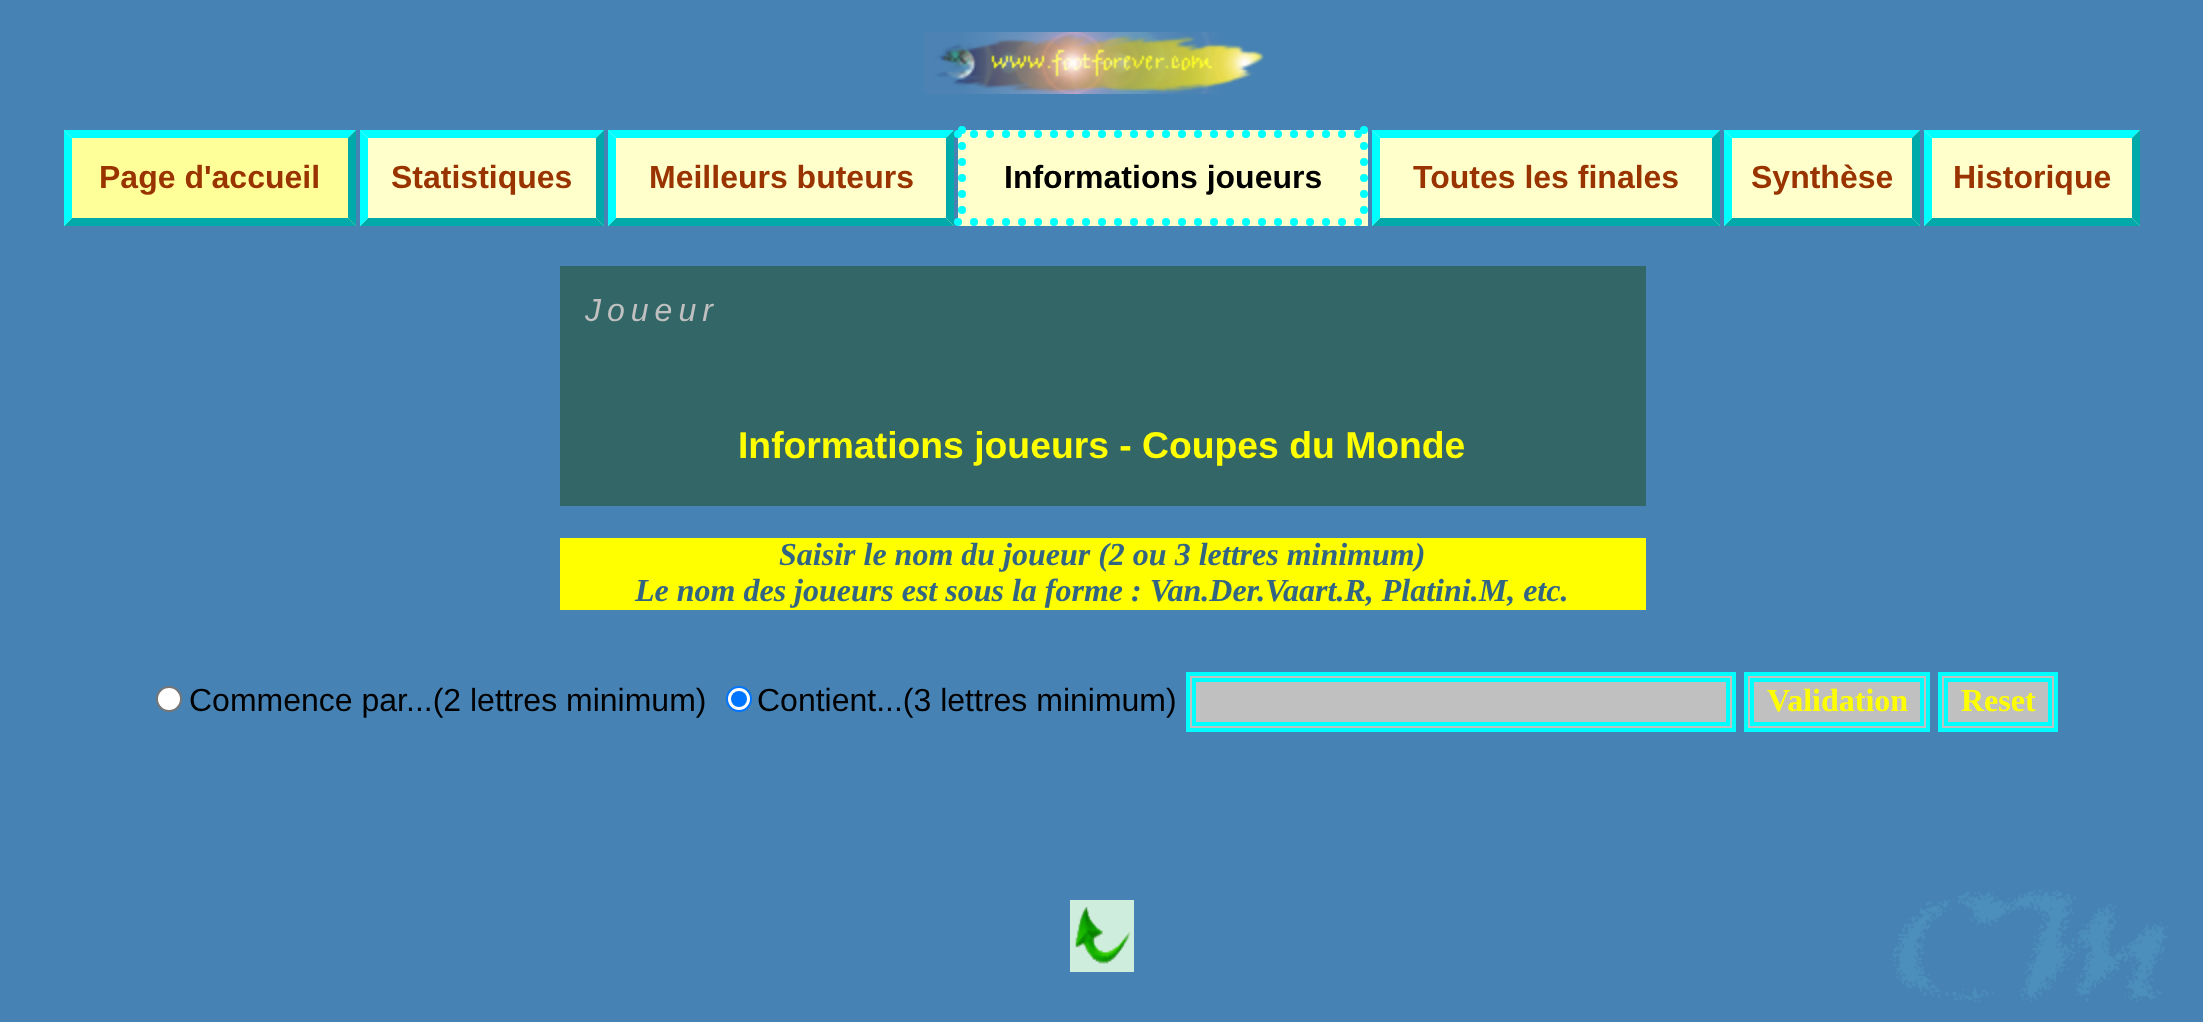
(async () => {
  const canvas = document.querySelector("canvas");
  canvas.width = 2203;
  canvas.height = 1022;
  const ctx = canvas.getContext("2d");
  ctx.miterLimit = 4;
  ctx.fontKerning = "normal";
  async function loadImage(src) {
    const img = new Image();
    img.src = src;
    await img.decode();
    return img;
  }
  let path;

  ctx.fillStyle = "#4682b4";
  ctx.fillRect(0, 0, 2203, 1022);
  ctx.drawImage(await loadImage("img/1.png"), 924, 32, 341, 62);
  ctx.fillStyle = "#ffff99";
  ctx.fillRect(64, 130, 292, 96);
  ctx.fillStyle = "#00ffff";
  path = new Path2D("M64 130H356L348 138H72Z");
  ctx.fill(path);
  ctx.fillStyle = "#00aaaa";
  path = new Path2D("M356 130V226L348 218V138Z");
  ctx.fill(path);
  path = new Path2D("M356 226H64L72 218H348Z");
  ctx.fill(path);
  ctx.fillStyle = "#00ffff";
  path = new Path2D("M64 226V130L72 138V218Z");
  ctx.fill(path);
  ctx.fillStyle = "#ffffcc";
  ctx.fillRect(360, 130, 244, 96);
  ctx.fillStyle = "#00ffff";
  path = new Path2D("M360 130H604L596 138H368Z");
  ctx.fill(path);
  ctx.fillStyle = "#00aaaa";
  path = new Path2D("M604 130V226L596 218V138Z");
  ctx.fill(path);
  path = new Path2D("M604 226H360L368 218H596Z");
  ctx.fill(path);
  ctx.fillStyle = "#00ffff";
  path = new Path2D("M360 226V130L368 138V218Z");
  ctx.fill(path);
  ctx.fillStyle = "#ffffcc";
  ctx.fillRect(608, 130, 346, 96);
  ctx.fillStyle = "#00ffff";
  path = new Path2D("M608 130H954L946 138H616Z");
  ctx.fill(path);
  ctx.fillStyle = "#00aaaa";
  path = new Path2D("M954 130V226L946 218V138Z");
  ctx.fill(path);
  path = new Path2D("M954 226H608L616 218H946Z");
  ctx.fill(path);
  ctx.fillStyle = "#00ffff";
  path = new Path2D("M608 226V130L616 138V218Z");
  ctx.fill(path);
  ctx.fillStyle = "#ffffcc";
  ctx.fillRect(958, 130, 410, 96);
  path = new Path2D("M958 134H1368");
  ctx.strokeStyle = "#00ffff";
  ctx.lineWidth = 8;
  ctx.lineCap = "round";
  ctx.setLineDash([0, 16]);
  ctx.stroke(path);
  path = new Path2D("M1364 130V226");
  ctx.stroke(path);
  path = new Path2D("M958 222H1368");
  ctx.stroke(path);
  path = new Path2D("M962 130V226");
  ctx.stroke(path);
  ctx.fillRect(1372, 130, 348, 96);
  ctx.fillStyle = "#00ffff";
  path = new Path2D("M1372 130H1720L1712 138H1380Z");
  ctx.fill(path);
  ctx.fillStyle = "#00aaaa";
  path = new Path2D("M1720 130V226L1712 218V138Z");
  ctx.fill(path);
  path = new Path2D("M1720 226H1372L1380 218H1712Z");
  ctx.fill(path);
  ctx.fillStyle = "#00ffff";
  path = new Path2D("M1372 226V130L1380 138V218Z");
  ctx.fill(path);
  ctx.fillStyle = "#ffffcc";
  ctx.fillRect(1724, 130, 196, 96);
  ctx.fillStyle = "#00ffff";
  path = new Path2D("M1724 130H1920L1912 138H1732Z");
  ctx.fill(path);
  ctx.fillStyle = "#00aaaa";
  path = new Path2D("M1920 130V226L1912 218V138Z");
  ctx.fill(path);
  path = new Path2D("M1920 226H1724L1732 218H1912Z");
  ctx.fill(path);
  ctx.fillStyle = "#00ffff";
  path = new Path2D("M1724 226V130L1732 138V218Z");
  ctx.fill(path);
  ctx.fillStyle = "#ffffcc";
  ctx.fillRect(1924, 130, 216, 96);
  ctx.fillStyle = "#00ffff";
  path = new Path2D("M1924 130H2140L2132 138H1932Z");
  ctx.fill(path);
  ctx.fillStyle = "#00aaaa";
  path = new Path2D("M2140 130V226L2132 218V138Z");
  ctx.fill(path);
  path = new Path2D("M2140 226H1924L1932 218H2132Z");
  ctx.fill(path);
  ctx.fillStyle = "#00ffff";
  path = new Path2D("M1924 226V130L1932 138V218Z");
  ctx.fill(path);
  ctx.fillStyle = "#336666";
  ctx.fillRect(560, 266, 1086, 240);
  ctx.fillStyle = "#ffff00";
  ctx.fillRect(560, 538, 1086, 72);
  ctx.fillStyle = "#ffffff";
  ctx.beginPath();
  ctx.arc(169, 699, 12, 0, Math.PI * 2);
  ctx.fill();
  ctx.strokeStyle = "#767676";
  ctx.lineWidth = 2;
  ctx.setLineDash([]);
  ctx.stroke();
  ctx.beginPath();
  ctx.arc(739, 699, 12, 0, Math.PI * 2);
  ctx.fill();
  ctx.strokeStyle = "#0075ff";
  ctx.stroke();
  ctx.fillStyle = "#0075ff";
  ctx.beginPath();
  ctx.arc(739, 699, 8, 0, Math.PI * 2);
  ctx.fill();
  ctx.fillStyle = "#c0c0c0";
  ctx.beginPath();
  ctx.rect(1188, 674, 546, 56);
  ctx.fill();
  ctx.strokeStyle = "#00ffff";
  ctx.lineWidth = 4;
  ctx.stroke();
  ctx.strokeRect(1194, 680, 534, 44);
  ctx.beginPath();
  ctx.rect(1746, 674, 182, 56);
  ctx.fill();
  ctx.stroke();
  ctx.strokeRect(1752, 680, 170, 44);
  ctx.beginPath();
  ctx.rect(1940, 674, 116, 56);
  ctx.fill();
  ctx.stroke();
  ctx.strokeRect(1946, 680, 104, 44);
  ctx.drawImage(await loadImage("img/2.png"), 1070, 900, 64, 72);
  ctx.drawImage(await loadImage("img/3.png"), 1890, 890, 278, 112);
  ctx.font = "bold 32px Liberation Sans";
  ctx.fillStyle = "#993300";
  for (const [text, x, y] of [
    ["Page d'accueil", 99, 188],
    ["Statistiques", 391, 188],
    ["Meilleurs buteurs", 649, 188],
  ]) {
    ctx.fillText(text, x, y);
  }
  ctx.fillStyle = "#000000";
  ctx.fillText("Informations joueurs", 1004, 188);
  ctx.fillStyle = "#993300";
  for (const [text, x, y] of [
    ["Toutes les finales", 1413, 188],
    ["Synthèse", 1751, 188],
    ["Historique", 1953, 188],
  ]) {
    ctx.fillText(text, x, y);
  }
  ctx.letterSpacing = "6px";
  ctx.font = "italic 32px Liberation Sans";
  ctx.fillStyle = "#c0c0c0";
  ctx.fillText("Joueur", 585, 321);
  ctx.letterSpacing = "0px";
  ctx.font = "bold 37.3px Liberation Sans";
  ctx.fillStyle = "#ffff00";
  ctx.fillText("Informations joueurs - Coupes du Monde", 738, 458);
  ctx.font = "italic bold 32px Liberation Serif";
  ctx.fillStyle = "#326584";
  ctx.fillText("Saisir le nom du joueur (2 ou 3 lettres minimum)", 779, 565);
  ctx.fillText("Le nom des joueurs est sous la forme : Van.Der.Vaart.R, Platini.M, etc.", 635, 601);
  ctx.font = "32px Liberation Sans";
  ctx.fillStyle = "#000000";
  ctx.fillText("Commence par...(2 lettres minimum)", 189, 711);
  ctx.fillText("Contient...(3 lettres minimum)", 757, 711);
  ctx.font = "bold 32px Liberation Serif";
  ctx.fillStyle = "#ffff00";
  ctx.fillText("Validation", 1767, 711);
  ctx.fillText("Reset", 1961, 711);
})();
